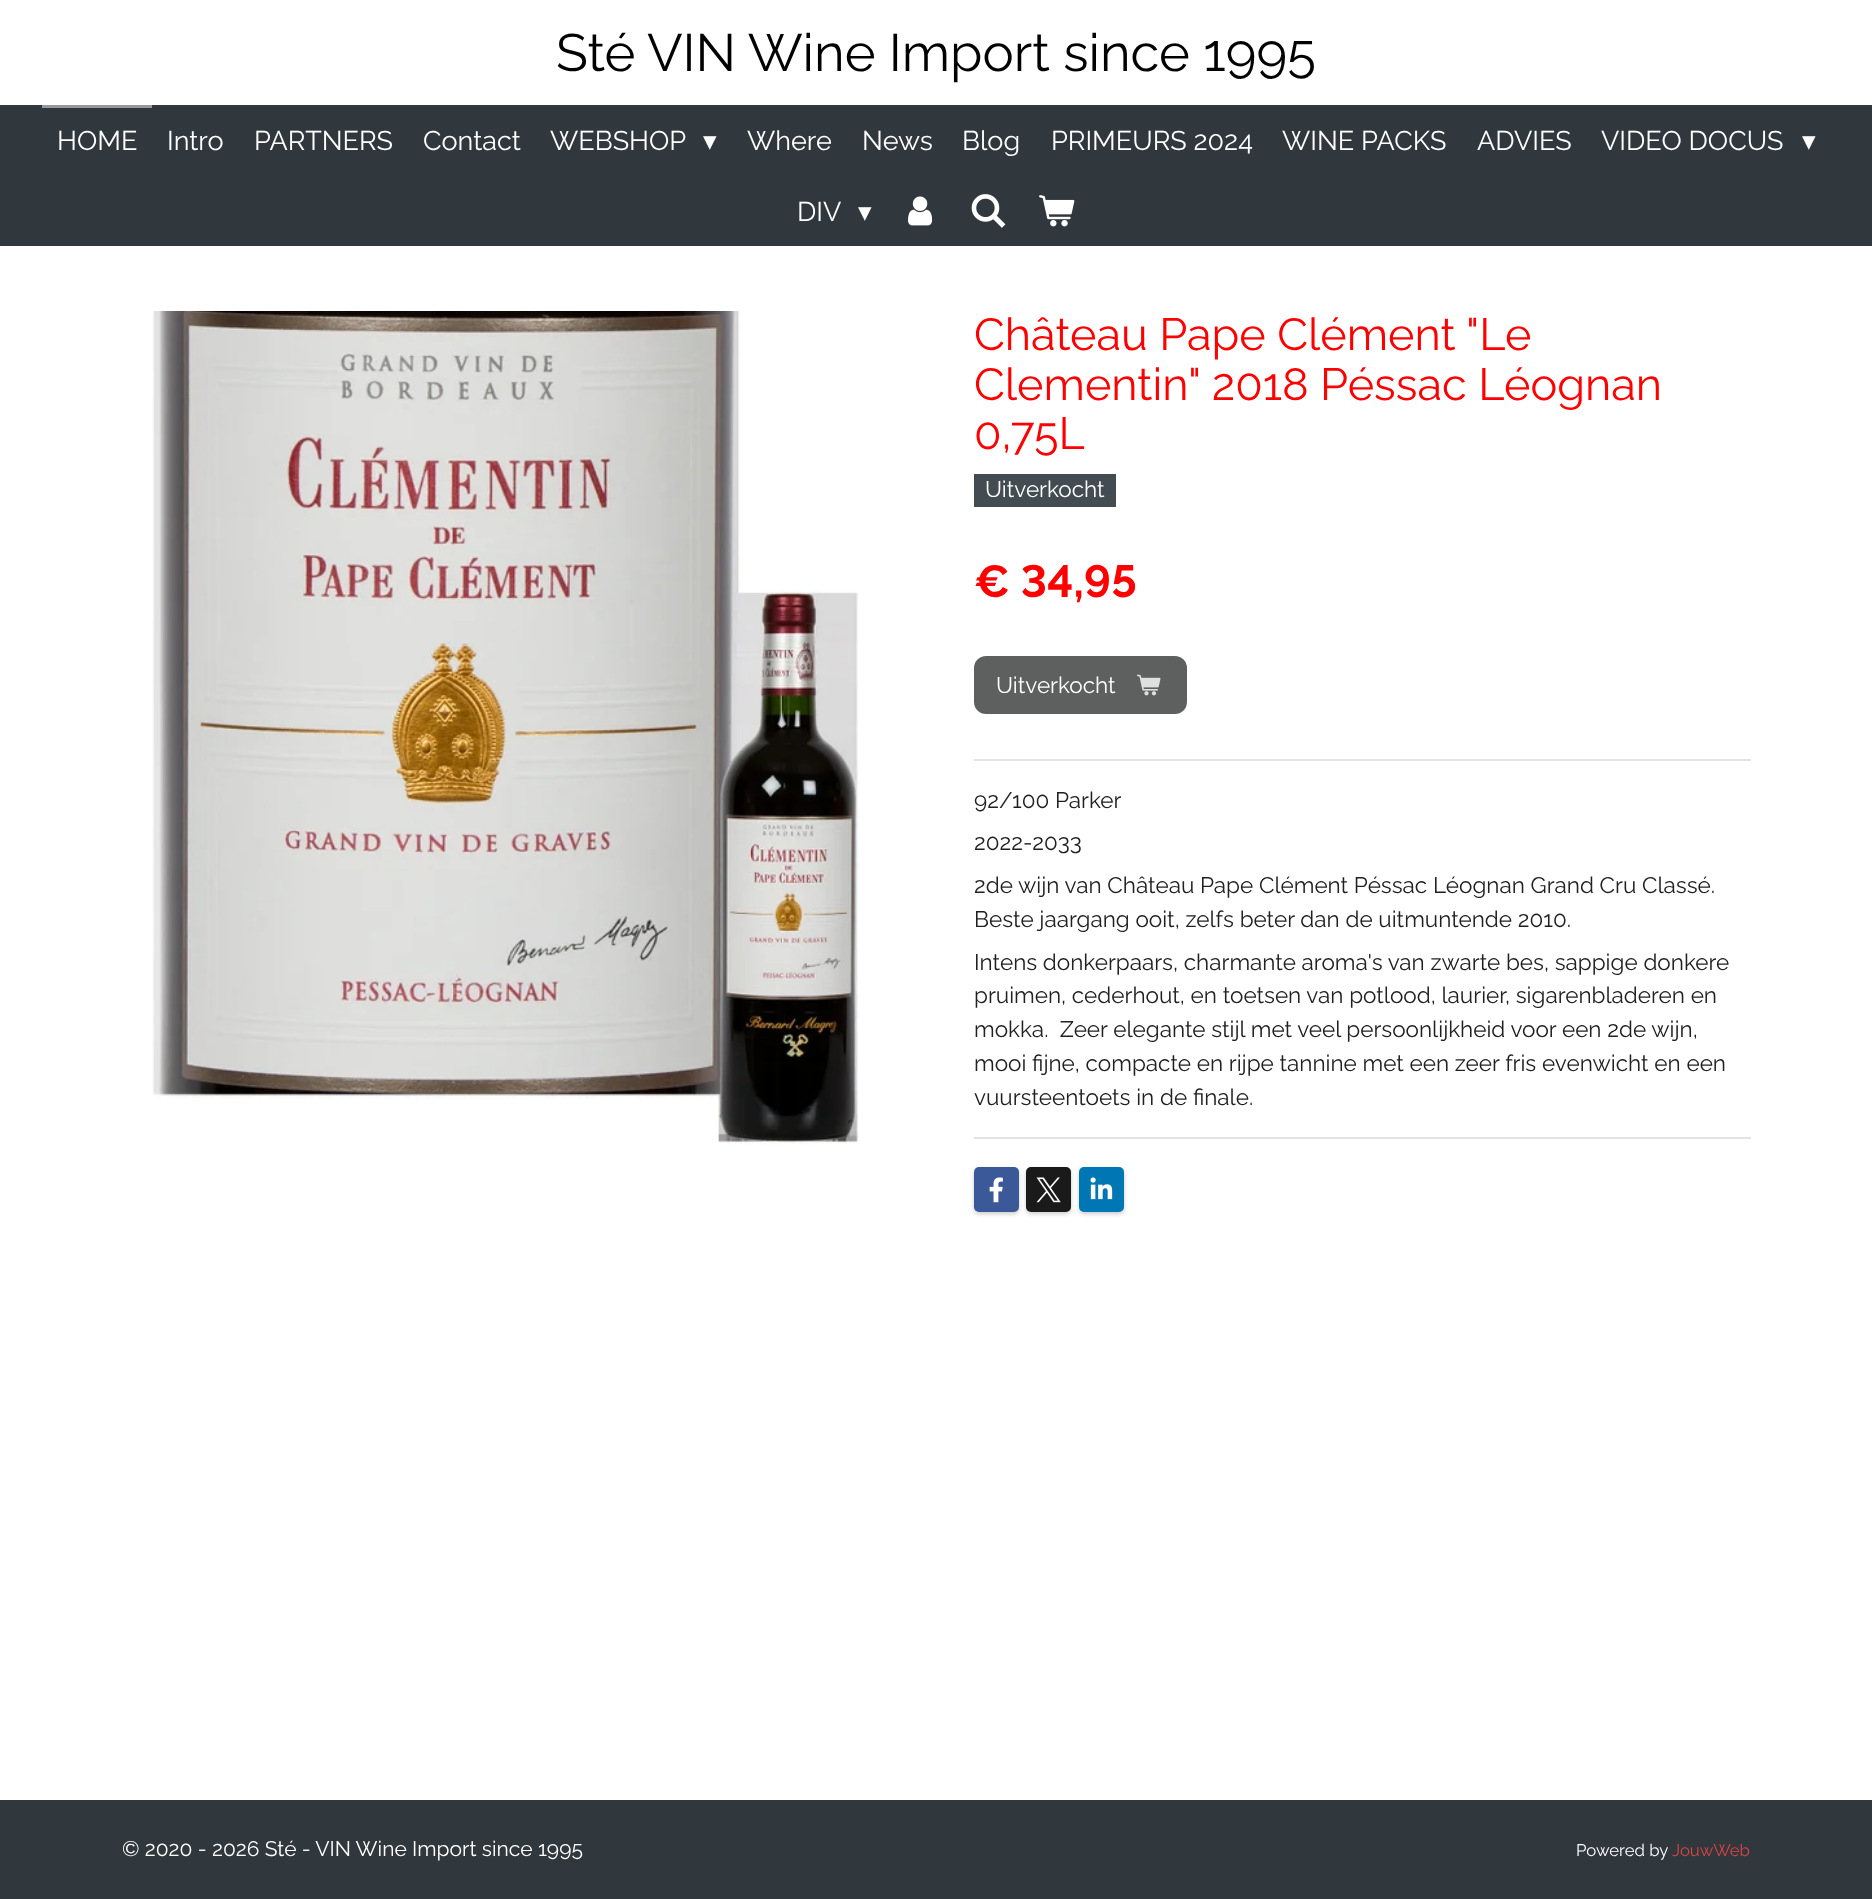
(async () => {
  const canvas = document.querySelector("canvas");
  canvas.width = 1872;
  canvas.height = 1899;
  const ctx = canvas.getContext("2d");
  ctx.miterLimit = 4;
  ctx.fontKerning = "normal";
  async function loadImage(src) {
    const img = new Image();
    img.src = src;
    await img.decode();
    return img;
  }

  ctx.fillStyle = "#ffffff";
  ctx.fillRect(0, 0, 1872, 1899);
  ctx.fillStyle = "#30383d";
  ctx.fillRect(0, 105, 1872, 141);
  ctx.fillStyle = "#999999";
  ctx.fillRect(42, 105, 110, 3);
  ctx.drawImage(await loadImage("img/1.png"), 908, 196, 25, 30);
  ctx.drawImage(await loadImage("img/2.png"), 971, 194, 35, 34);
  ctx.drawImage(await loadImage("img/3.png"), 1039, 195, 36, 32);
  ctx.drawImage(await loadImage("img/4.png"), 152, 311, 707, 834);
  ctx.fillStyle = "#424c51";
  ctx.fillRect(974, 474, 142, 33);
  ctx.fillStyle = "#5e5f5f";
  ctx.beginPath();
  ctx.roundRect(974, 656, 213, 58, 12);
  ctx.fill();
  ctx.drawImage(await loadImage("img/5.png"), 1137, 674, 24, 22);
  ctx.fillStyle = "#e3e3e3";
  ctx.fillRect(974, 759, 777, 2);
  ctx.fillRect(974, 1137, 777, 2);
  ctx.fillStyle = "rgba(0, 0, 0, 0.2)";
  ctx.filter = "blur(2px)";
  ctx.beginPath();
  ctx.roundRect(974, 1169, 45, 45, 5);
  ctx.fill();
  ctx.filter = "none";
  ctx.fillStyle = "#3b5998";
  ctx.beginPath();
  ctx.roundRect(974, 1167, 45, 45, 5);
  ctx.fill();
  ctx.drawImage(await loadImage("img/6.png"), 989, 1177, 14, 26);
  ctx.fillStyle = "rgba(0, 0, 0, 0.2)";
  ctx.filter = "blur(2px)";
  ctx.beginPath();
  ctx.roundRect(1026, 1169, 45, 45, 5);
  ctx.fill();
  ctx.filter = "none";
  ctx.fillStyle = "#1a1a1a";
  ctx.beginPath();
  ctx.roundRect(1026, 1167, 45, 45, 5);
  ctx.fill();
  ctx.drawImage(await loadImage("img/7.png"), 1036, 1177, 25, 26);
  ctx.fillStyle = "rgba(0, 0, 0, 0.2)";
  ctx.filter = "blur(2px)";
  ctx.beginPath();
  ctx.roundRect(1079, 1169, 45, 45, 5);
  ctx.fill();
  ctx.filter = "none";
  ctx.fillStyle = "#0077b5";
  ctx.beginPath();
  ctx.roundRect(1079, 1167, 45, 45, 5);
  ctx.fill();
  ctx.drawImage(await loadImage("img/8.png"), 1090, 1177, 23, 23);
  ctx.fillStyle = "#30383d";
  ctx.fillRect(0, 1800, 1872, 99);
  ctx.font = "52.5px Raleway";
  ctx.fillStyle = "#000000";
  ctx.fillText("Sté VIN Wine Import since 1995", 556, 71);
  ctx.font = "27px Raleway";
  ctx.fillStyle = "#ffffff";
  for (const [text, x, y] of [
    ["HOME", 57, 150],
    ["Intro", 167, 150],
    ["PARTNERS", 254, 150],
    ["Contact", 423, 150],
    ["WEBSHOP", 550, 150],
  ]) {
    ctx.fillText(text, x, y);
  }
  ctx.font = "27px DejaVu Sans";
  ctx.fillText("▾", 703, 150);
  ctx.font = "27px Raleway";
  for (const [text, x, y] of [
    ["Where", 747, 150],
    ["News", 862, 150],
    ["Blog", 962, 150],
    ["PRIMEURS 2024", 1051, 150],
    ["WINE PACKS", 1282, 150],
    ["ADVIES", 1477, 150],
    ["VIDEO DOCUS", 1601, 150],
  ]) {
    ctx.fillText(text, x, y);
  }
  ctx.font = "27px DejaVu Sans";
  ctx.fillText("▾", 1802, 150);
  ctx.font = "27px Raleway";
  ctx.fillText("DIV", 797, 221);
  ctx.font = "27px DejaVu Sans";
  ctx.fillText("▾", 858, 221);
  ctx.font = "45px Raleway";
  ctx.fillStyle = "#ff0000";
  for (const [text, x, y] of [
    ["Château Pape Clément \"Le", 974, 350],
    ["Clementin\" 2018 Péssac Léognan", 974, 400],
    ["0,75L", 974, 449],
  ]) {
    ctx.fillText(text, x, y);
  }
  ctx.font = "22.5px Raleway";
  ctx.fillStyle = "#ffffff";
  ctx.fillText("Uitverkocht", 985, 497);
  ctx.font = "bold 45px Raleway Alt";
  ctx.fillStyle = "#ff0000";
  ctx.fillText("€ 34,95", 974, 597);
  ctx.font = "22.5px Raleway";
  ctx.fillStyle = "#ffffff";
  ctx.fillText("Uitverkocht", 996, 693);
  ctx.fillStyle = "#202020";
  for (const [text, x, y] of [
    ["92/100 Parker", 974, 808],
    ["2022-2033", 974, 850],
    ["2de wijn van Château Pape Clément Péssac Léognan Grand Cru Classé.", 974, 893],
    ["Beste jaargang ooit, zelfs beter dan de uitmuntende 2010.", 974, 927],
    ["Intens donkerpaars, charmante aroma's van zwarte bes, sappige donkere", 974, 970],
    ["pruimen, cederhout, en toetsen van potlood, laurier, sigarenbladeren en", 974, 1003],
    ["mokka.  Zeer elegante stijl met veel persoonlijkheid voor een 2de wijn,", 974, 1037],
    ["mooi fijne, compacte en rijpe tannine met een zeer fris evenwicht en een", 974, 1071],
    ["vuursteentoets in de finale.", 974, 1105],
  ]) {
    ctx.fillText(text, x, y);
  }
  ctx.font = "21px Raleway";
  ctx.fillStyle = "#ffffff";
  ctx.fillText("© 2020 - 2026 Sté - VIN Wine Import since 1995", 122, 1856);
  ctx.font = "16.75px Raleway";
  ctx.fillText("Powered by", 1576, 1856);
  ctx.fillStyle = "#da4444";
  ctx.fillText("JouwWeb", 1672, 1856);
})();
